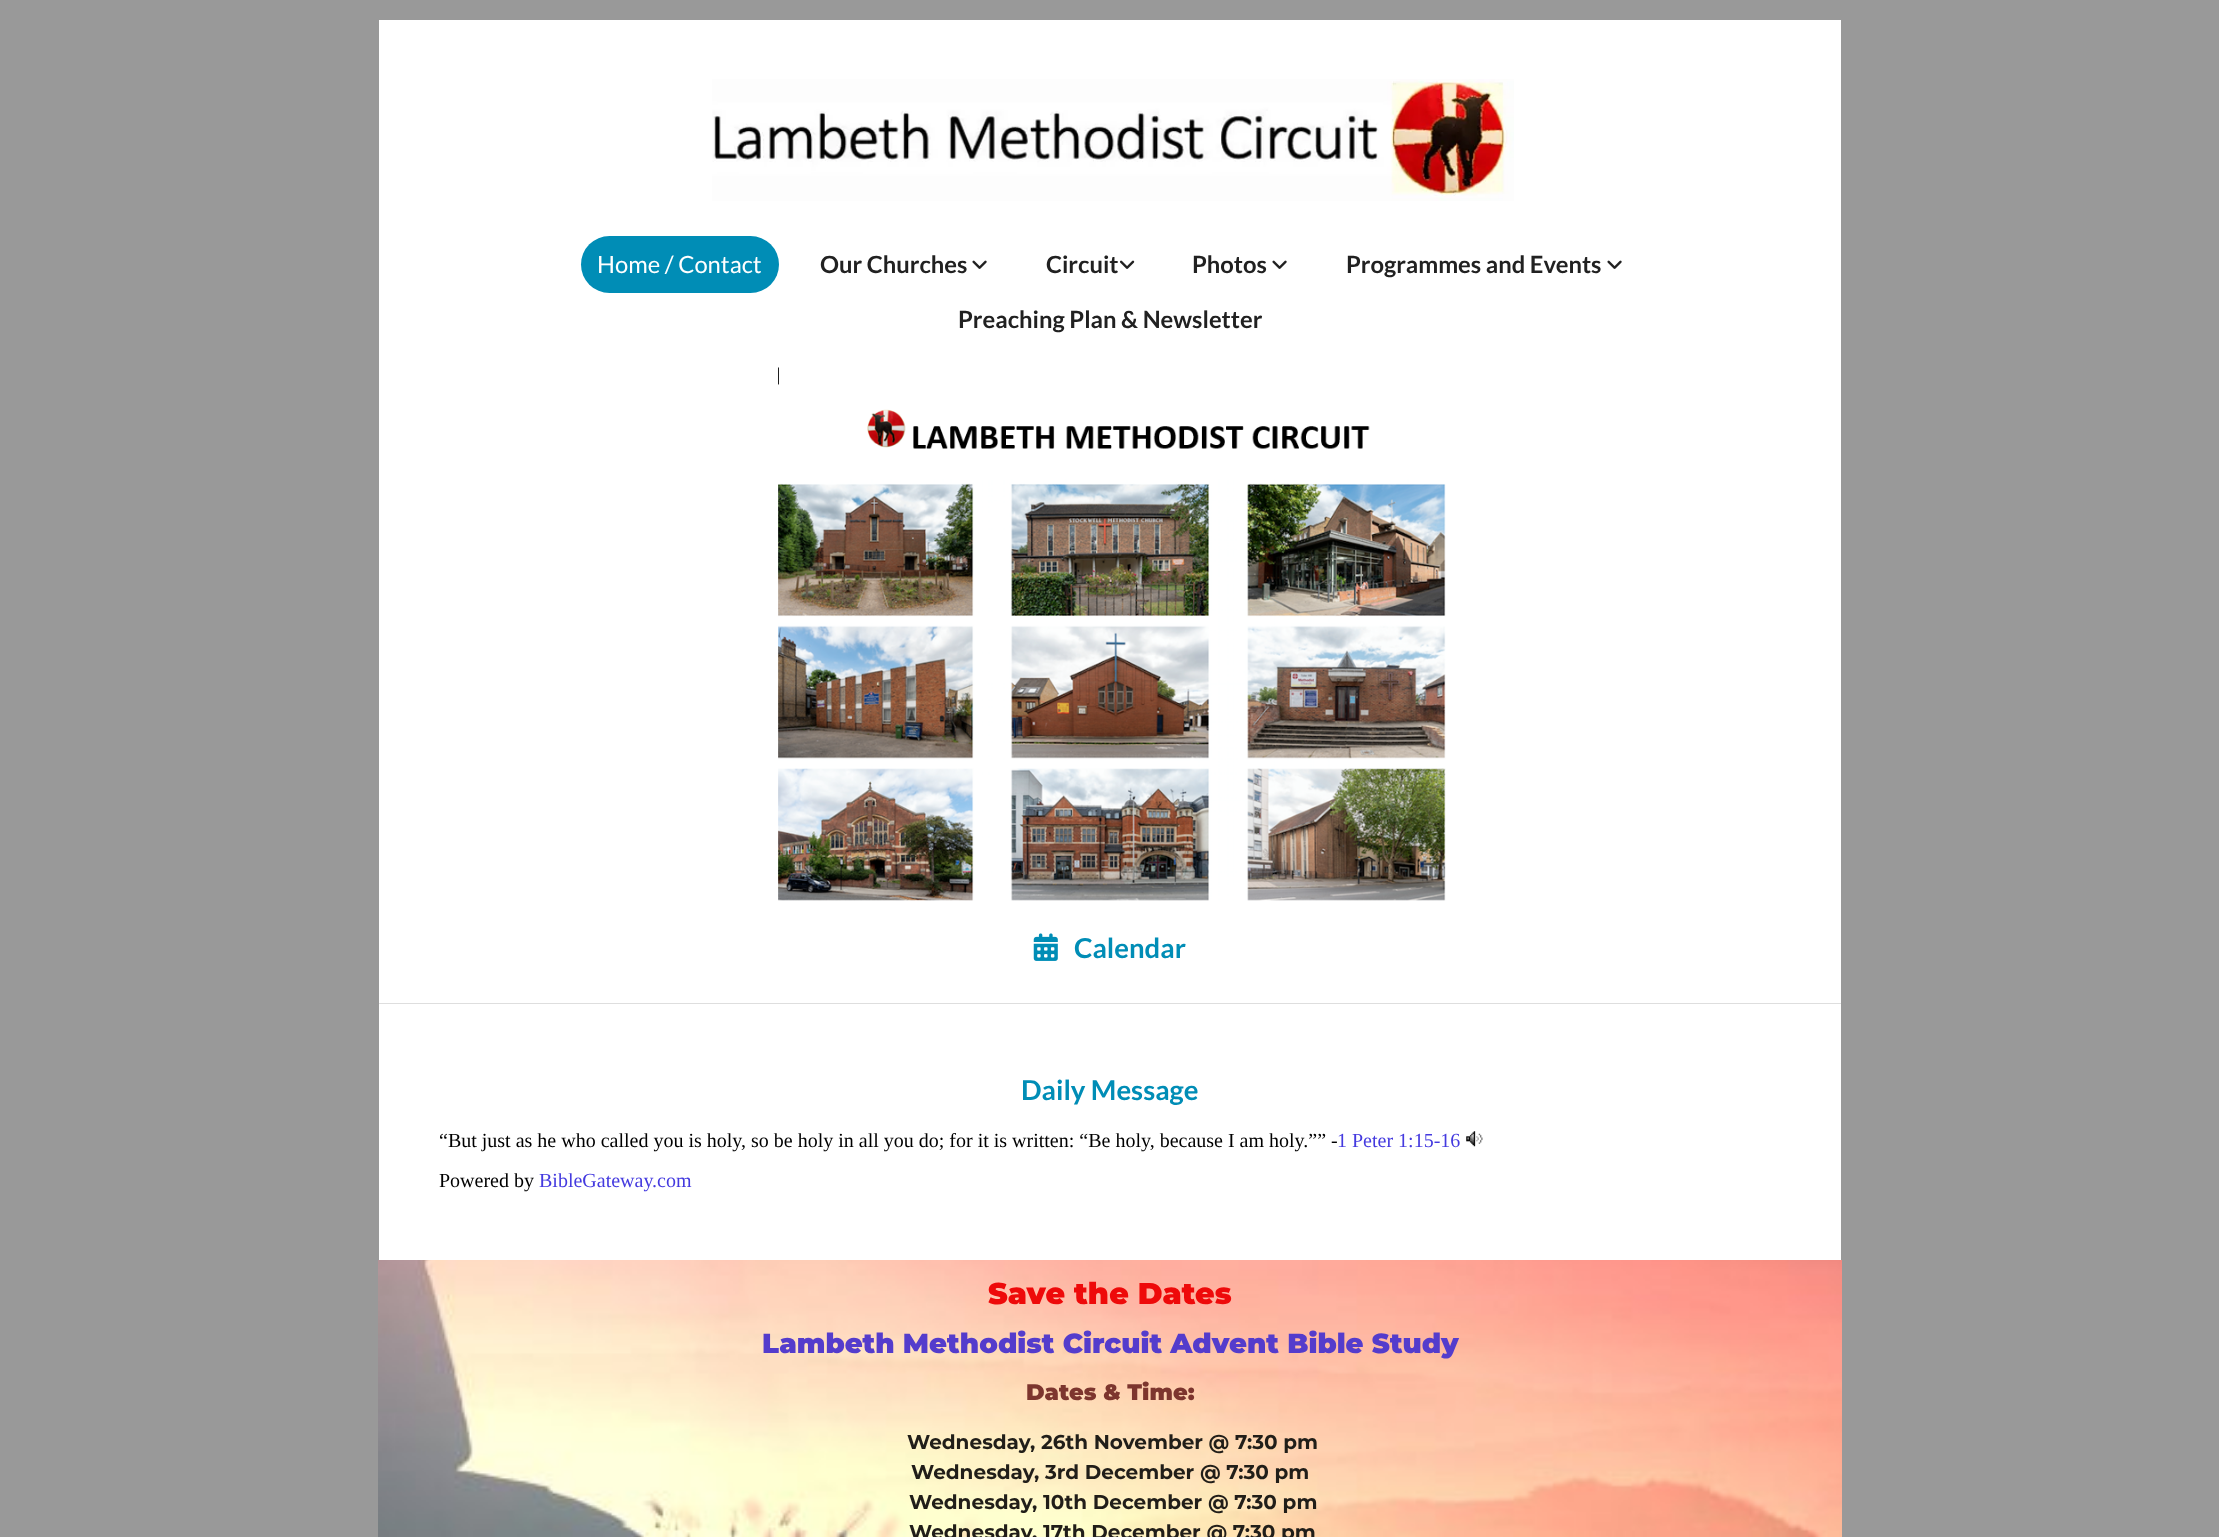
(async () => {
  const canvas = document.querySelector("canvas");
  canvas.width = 2219;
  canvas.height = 1537;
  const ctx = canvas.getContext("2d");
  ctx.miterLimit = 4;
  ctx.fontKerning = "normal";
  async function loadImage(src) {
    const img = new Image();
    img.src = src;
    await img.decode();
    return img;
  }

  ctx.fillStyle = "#999999";
  ctx.fillRect(0, 0, 2219, 1537);
  ctx.fillStyle = "#ffffff";
  ctx.fillRect(379, 20, 1462, 1240);
  ctx.drawImage(await loadImage("img/1.png"), 712, 79, 802, 122);
  ctx.fillStyle = "#008db6";
  ctx.beginPath();
  ctx.roundRect(581, 236, 198, 57, 28.5);
  ctx.fill();
  ctx.drawImage(await loadImage("img/2.png"), 972, 260, 15, 9);
  ctx.drawImage(await loadImage("img/3.png"), 1120, 260, 15, 9);
  ctx.drawImage(await loadImage("img/2.png"), 1272, 260, 15, 9);
  ctx.drawImage(await loadImage("img/2.png"), 1607, 260, 15, 9);
  ctx.drawImage(await loadImage("img/4.png"), 778, 367, 668, 534);
  ctx.drawImage(await loadImage("img/5.png"), 1033, 933, 25, 28);
  ctx.fillStyle = "#dedede";
  ctx.fillRect(379, 1003, 1462, 1);
  ctx.drawImage(await loadImage("img/6.png"), 1466, 1131, 17, 16);
  ctx.drawImage(await loadImage("img/7.png"), 378, 1260, 1464, 277);
  ctx.font = "23.75px Lato";
  ctx.fillStyle = "#ffffff";
  ctx.fillText("Home / Contact", 597, 273);
  ctx.font = "bold 23.75px Lato";
  ctx.fillStyle = "#212121";
  for (const [text, x, y] of [
    ["Our Churches", 820, 273],
    ["Circuit", 1046, 273],
    ["Photos", 1192, 273],
    ["Programmes and Events", 1346, 273],
    ["Preaching Plan & Newsletter", 958, 328],
  ]) {
    ctx.fillText(text, x, y);
  }
  ctx.font = "bold 27.5px Lato";
  ctx.fillStyle = "#008db6";
  ctx.fillText("Calendar", 1074, 958);
  ctx.fillText("Daily Message", 1021, 1100);
  ctx.font = "20px Liberation Serif";
  ctx.fillStyle = "#000000";
  ctx.fillText("“But just as he who called you is holy, so be holy in all you do; for it is written: “Be holy, because I am holy.”” -", 439, 1147);
  ctx.fillStyle = "#443adf";
  ctx.fillText("1 Peter 1:15-16", 1337, 1147);
  ctx.fillStyle = "#000000";
  ctx.fillText("Powered by", 439, 1187);
  ctx.fillStyle = "#443adf";
  ctx.fillText("BibleGateway.com", 539, 1187);
  ctx.font = "100 30px Montserrat";
  ctx.fillStyle = "#ee0a0a";
  ctx.fillText("Save the Dates", 988, 1304);
  ctx.font = "100 27.5px Montserrat";
  ctx.fillStyle = "#543ccc";
  ctx.fillText("Lambeth Methodist Circuit Advent Bible Study", 762, 1353);
  ctx.font = "100 22.5px Montserrat";
  ctx.fillStyle = "#7d352e";
  ctx.fillText("Dates & Time:", 1026, 1400);
  ctx.font = "100 20px 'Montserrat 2'";
  ctx.fillStyle = "#211e19";
  for (const [text, x, y] of [
    ["Wednesday, 26th November @ 7:30 pm", 907, 1449],
    ["Wednesday, 3rd December @ 7:30 pm", 911, 1479],
    ["Wednesday, 10th December @ 7:30 pm", 909, 1509],
    ["Wednesday, 17th December @ 7:30 pm", 909, 1539],
  ]) {
    ctx.fillText(text, x, y);
  }
})();
